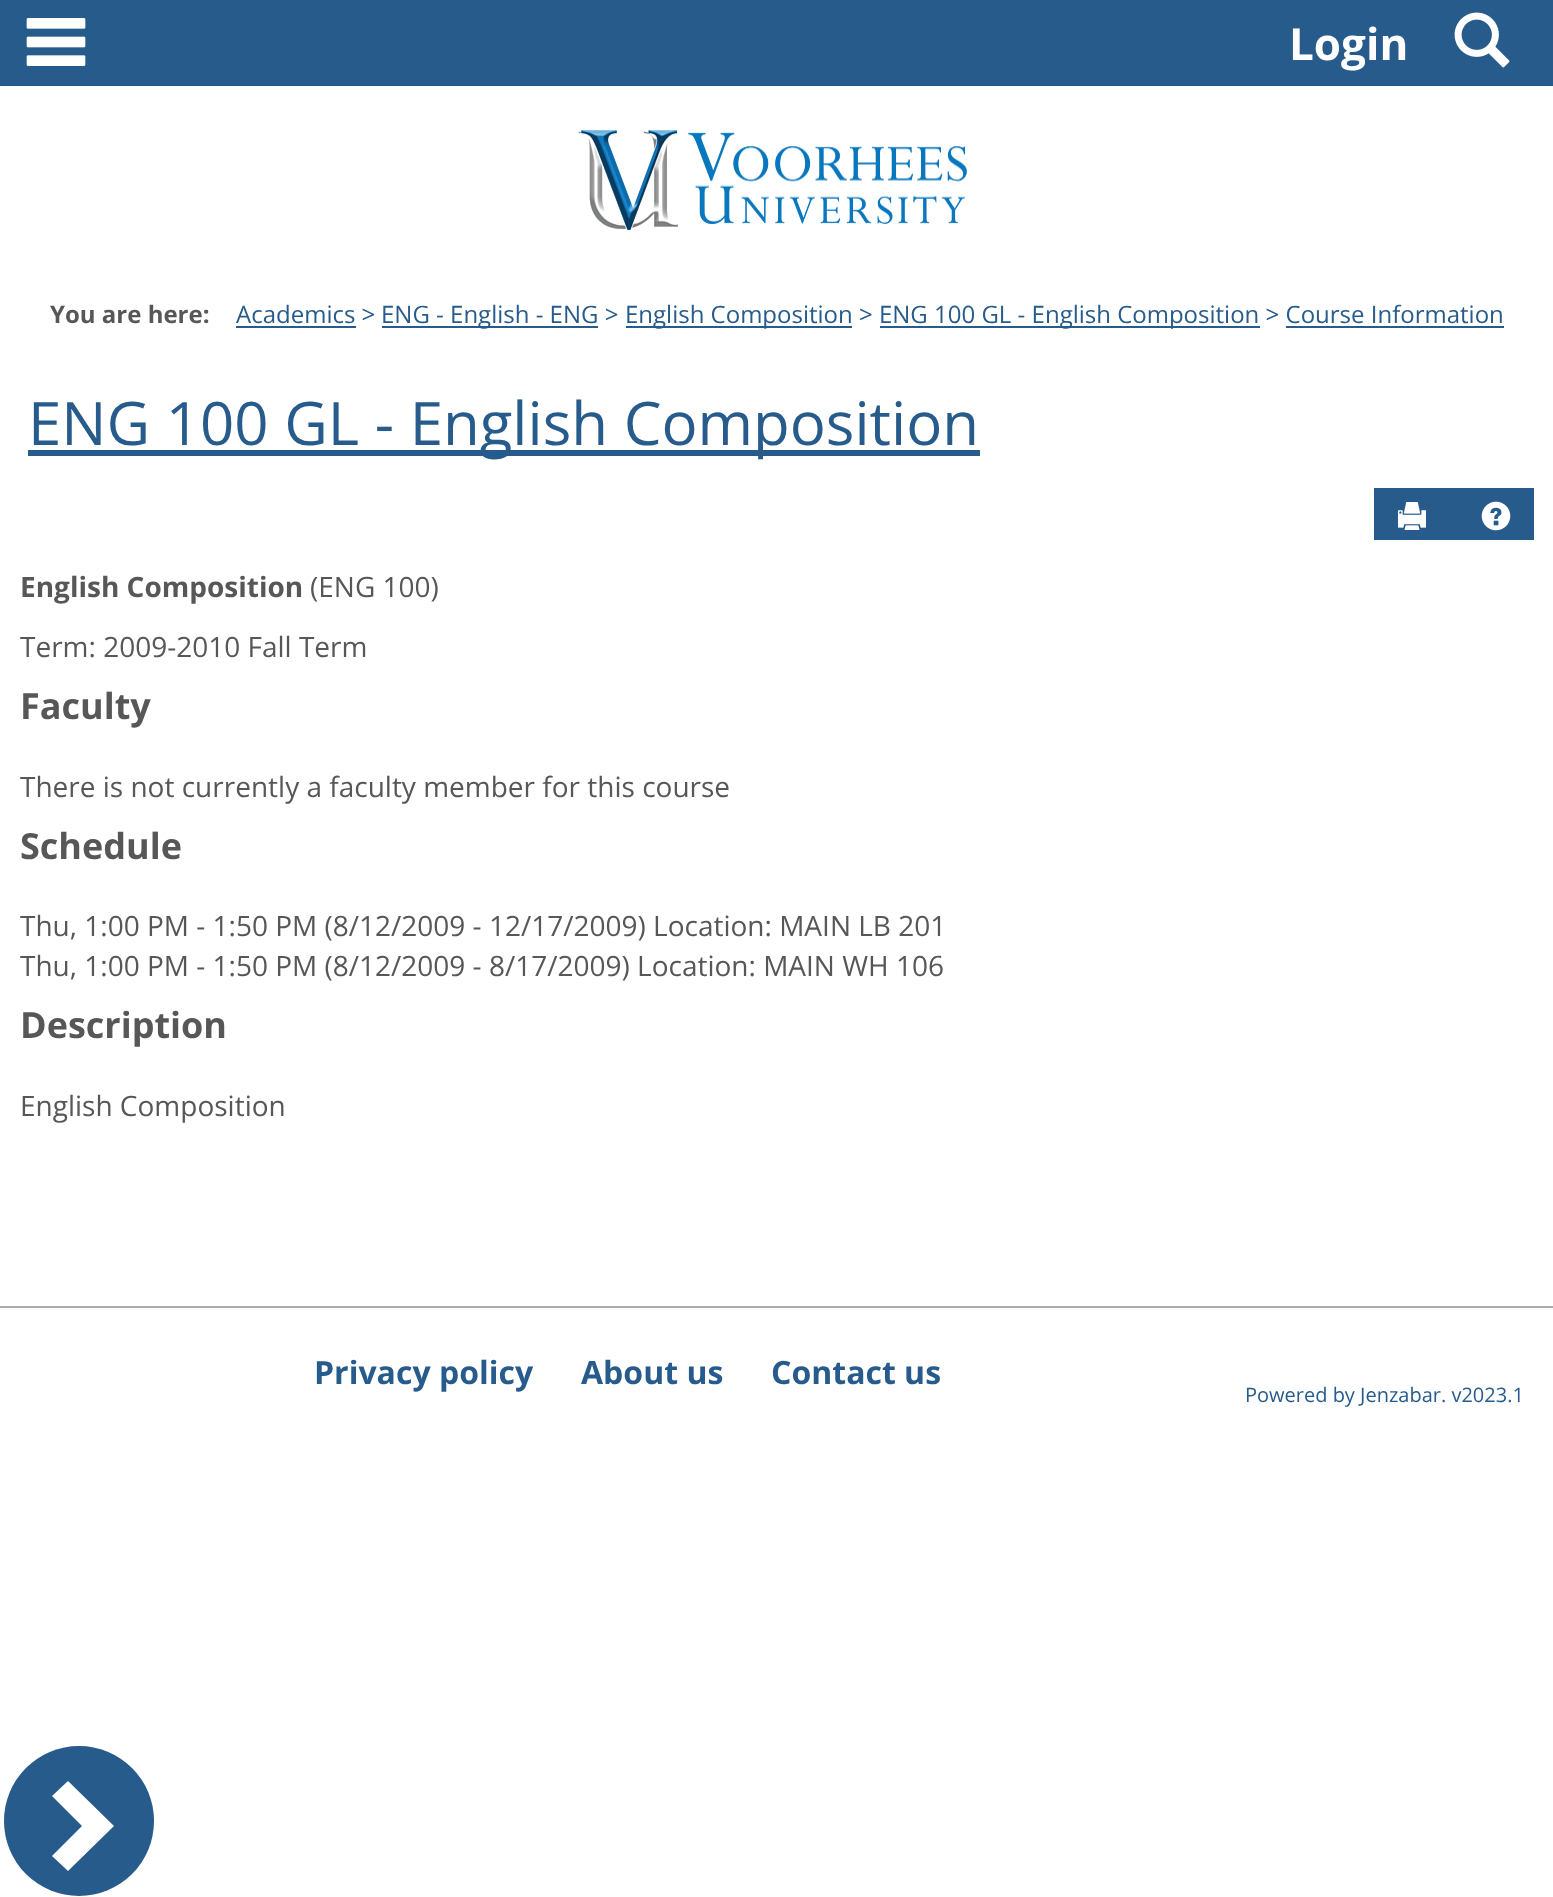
(async () => {
  const canvas = document.querySelector("canvas");
  canvas.width = 1553;
  canvas.height = 1897;
  const ctx = canvas.getContext("2d");
  ctx.miterLimit = 4;
  ctx.fontKerning = "normal";
  async function loadImage(src) {
    const img = new Image();
    img.src = src;
    await img.decode();
    return img;
  }
  let path;

  ctx.fillStyle = "#ffffff";
  ctx.fillRect(0, 0, 1553, 1897);
  ctx.fillStyle = "#265b8c";
  ctx.fillRect(0, 0, 1553, 86);
  ctx.drawImage(await loadImage("img/1.png"), 26, 18, 60, 48);
  ctx.drawImage(await loadImage("img/2.png"), 1454, 12, 56, 56);
  ctx.drawImage(await loadImage("img/3.png"), 578, 130, 389, 101);
  for (const [x, y, w, h, color] of [
    [236, 326, 120, 2, "#265b8c"],
    [382, 326, 216, 2, "#265b8c"],
    [626, 326, 226, 2, "#265b8c"],
    [880, 326, 380, 2, "#265b8c"],
    [1286, 326, 218, 2, "#265b8c"],
    [28, 450, 952, 6, "#265b8c"],
    [1374, 488, 160, 52, "#265b8c"],
  ]) {
    ctx.fillStyle = color;
    ctx.fillRect(x, y, w, h);
  }
  ctx.drawImage(await loadImage("img/4.png"), 1398, 502, 28, 28);
  ctx.drawImage(await loadImage("img/5.png"), 1481, 501, 30, 30);
  ctx.beginPath();
  ctx.arc(79, 1821, 75, 0, Math.PI * 2);
  ctx.fill();
  ctx.fillStyle = "#ffffff";
  path = new Path2D("M68 1871L52 1856L82 1826L52 1796L68 1781L114 1826Z");
  ctx.fill(path);
  ctx.fillStyle = "#ababab";
  ctx.fillRect(0, 1306, 1553, 2);
  ctx.font = "bold 44px Open Sans";
  ctx.fillStyle = "#ffffff";
  ctx.fillText("Login", 1289, 60);
  ctx.font = "bold 24px Open Sans";
  ctx.fillStyle = "#575757";
  ctx.fillText("You are here:", 50, 323);
  ctx.font = "24px Open Sans";
  ctx.fillStyle = "#265b8c";
  for (const [text, x, y] of [
    ["Academics >", 236, 323],
    ["ENG - English - ENG >", 381, 323],
    ["English Composition > ENG", 625, 323],
    ["100 GL - English Composition > Course Information", 934, 323],
  ]) {
    ctx.fillText(text, x, y);
  }
  ctx.font = "60px Open Sans";
  ctx.fillText("ENG 100 GL - English Composition", 28, 445);
  ctx.font = "bold 28px Open Sans";
  ctx.fillStyle = "#575757";
  ctx.fillText("English Composition", 20, 597);
  ctx.font = "28px Open Sans";
  ctx.fillText("(ENG 100)", 310, 597);
  ctx.fillText("Term: 2009-2010 Fall Term", 20, 657);
  ctx.font = "bold 36px Open Sans";
  ctx.fillText("Faculty", 20, 719);
  ctx.font = "28px Open Sans";
  ctx.fillText("There is not currently a faculty member for this course", 20, 797);
  ctx.font = "bold 36px Open Sans";
  ctx.fillText("Schedule", 20, 859);
  ctx.font = "28px Open Sans";
  ctx.fillText("Thu, 1:00 PM - 1:50 PM (8/12/2009 - 12/17/2009) Location: MAIN LB 201", 20, 936);
  ctx.fillText("Thu, 1:00 PM - 1:50 PM (8/12/2009 - 8/17/2009) Location: MAIN WH 106", 20, 976);
  ctx.font = "bold 36px Open Sans";
  ctx.fillText("Description", 20, 1038);
  ctx.font = "28px Open Sans";
  ctx.fillText("English Composition", 20, 1116);
  ctx.font = "bold 32px Open Sans";
  ctx.fillStyle = "#265b8c";
  for (const [text, x, y] of [
    ["Privacy policy", 314, 1384],
    ["About us", 581, 1384],
    ["Contact us", 771, 1384],
  ]) {
    ctx.fillText(text, x, y);
  }
  ctx.font = "20px Open Sans";
  ctx.fillText("Powered by Jenzabar. v2023.1", 1245, 1402);
})();
